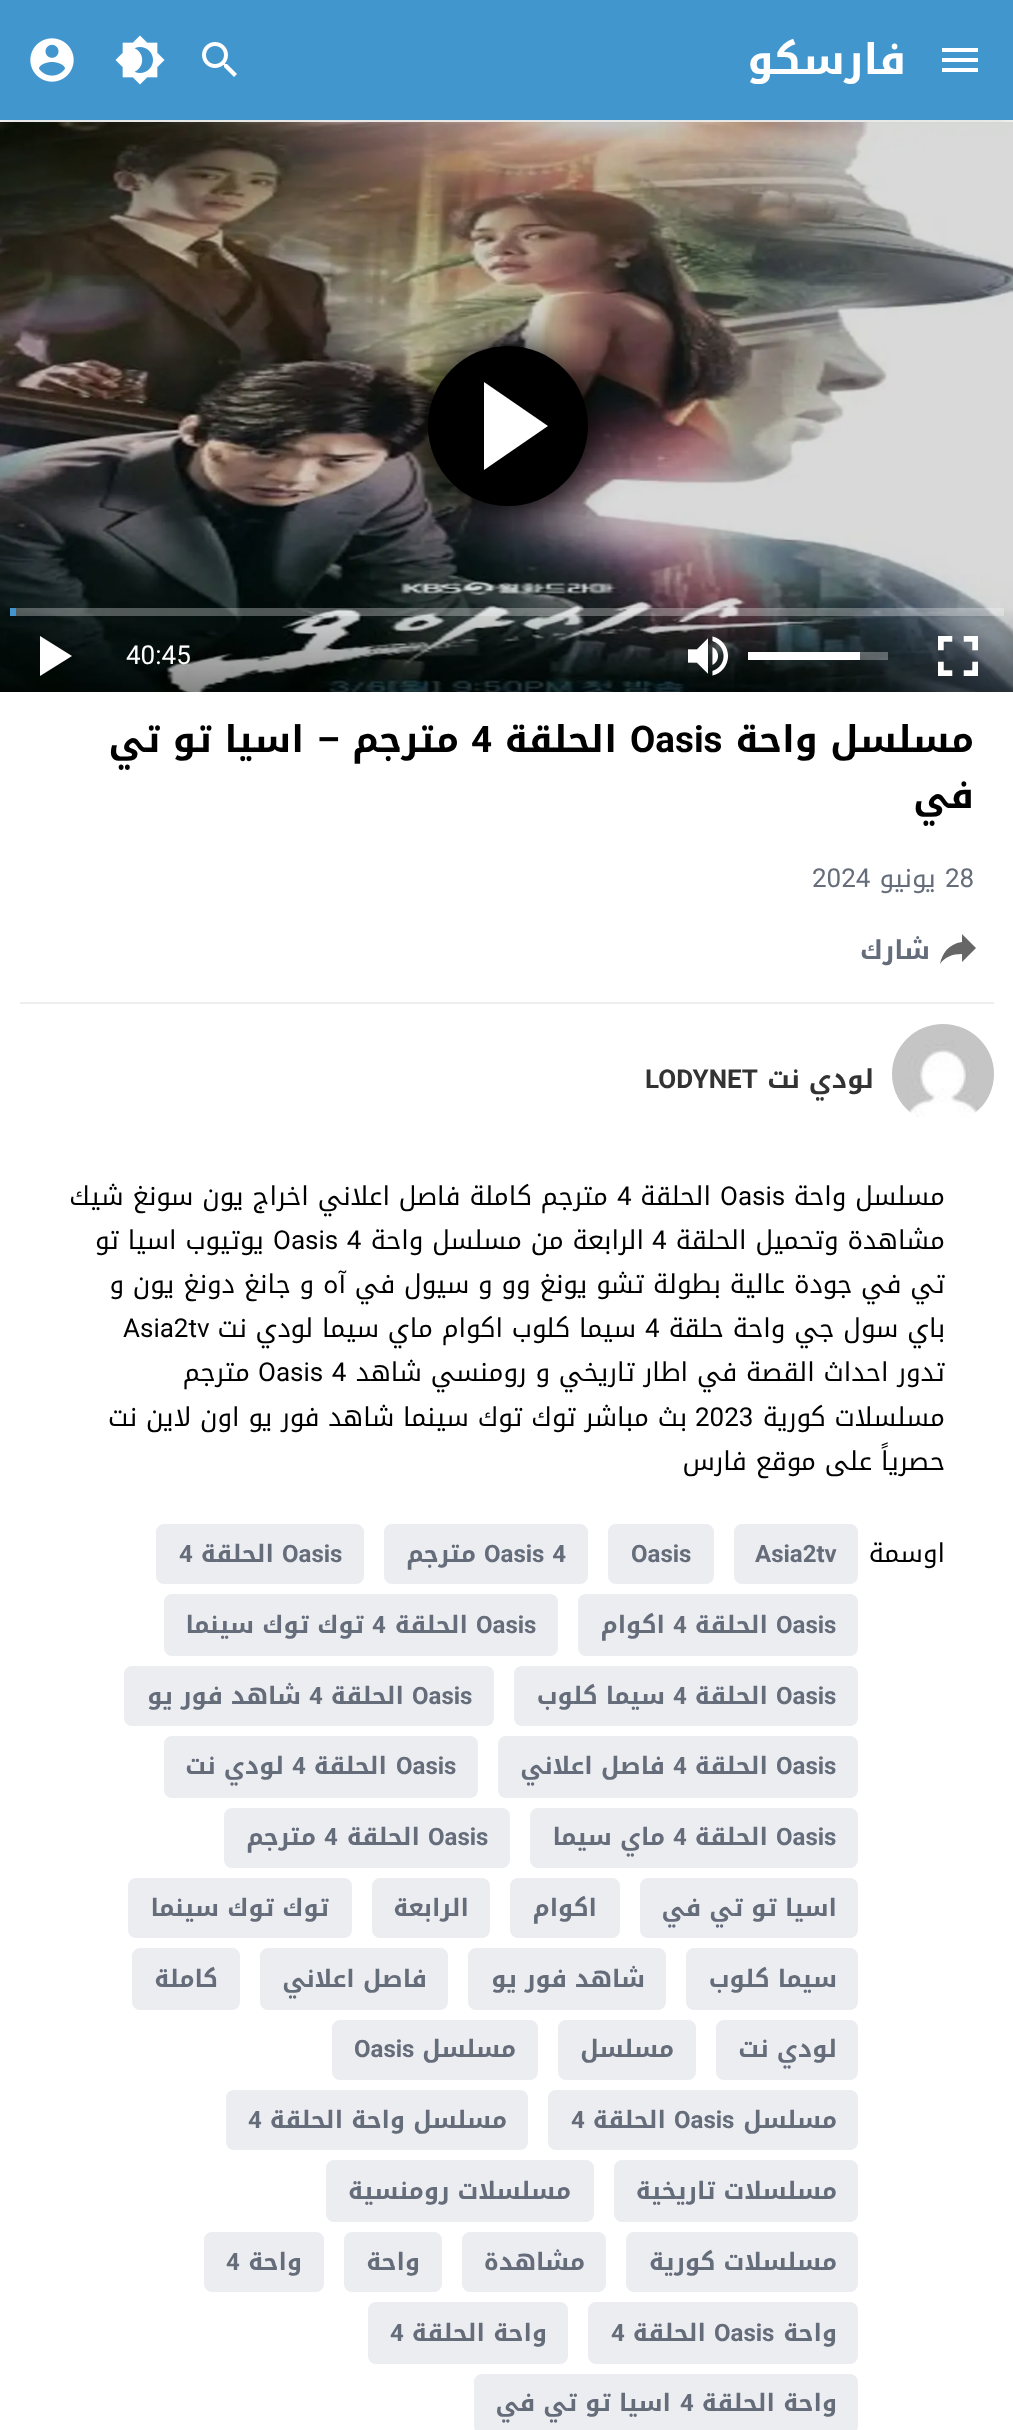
(async () => {
  const canvas = document.querySelector("canvas");
  canvas.width = 1013;
  canvas.height = 2430;
  const ctx = canvas.getContext("2d");
  ctx.miterLimit = 4;
  ctx.fontKerning = "normal";
  async function loadImage(src) {
    const img = new Image();
    img.src = src;
    await img.decode();
    return img;
  }
  let path;

  ctx.fillStyle = "#ffffff";
  ctx.fillRect(0, 0, 1013, 2430);
  ctx.fillStyle = "#eeeeee";
  ctx.fillRect(0, 120, 1013, 2);
  ctx.drawImage(await loadImage("img/5.png"), 0, 122, 1013, 570);
  ctx.fillStyle = "#999999";
  ctx.filter = "blur(5px)";
  ctx.beginPath();
  ctx.rect(10, 14, 994, 100);
  ctx.fill();
  ctx.filter = "none";
  ctx.fillStyle = "#4296ce";
  ctx.fillRect(0, 0, 1013, 120);
  ctx.drawImage(await loadImage("img/1.png"), 942, 48, 36, 24);
  ctx.drawImage(await loadImage("img/2.png"), 202, 42, 35, 35);
  ctx.drawImage(await loadImage("img/3.png"), 115, 35, 50, 50);
  ctx.drawImage(await loadImage("img/4.png"), 30, 38, 44, 44);
  ctx.fillStyle = "#000000";
  ctx.filter = "blur(20px)";
  ctx.beginPath();
  ctx.roundRect(428, 346, 160, 160, 80);
  ctx.fill();
  ctx.filter = "none";
  ctx.beginPath();
  ctx.arc(508, 426, 80, 0, Math.PI * 2);
  ctx.fill();
  ctx.fillStyle = "#ffffff";
  path = new Path2D("M484 470V382L548 426Z");
  ctx.fill(path);
  ctx.fillStyle = "rgba(255, 255, 255, 0.3)";
  ctx.fillRect(10, 608, 994, 8);
  ctx.fillStyle = "#4296ce";
  ctx.fillRect(10, 608, 6, 8);
  ctx.drawImage(await loadImage("img/6.png"), 938, 636, 40, 40);
  ctx.fillStyle = "rgba(255, 255, 255, 0.3)";
  ctx.fillRect(860, 652, 28, 8);
  ctx.fillStyle = "#ffffff";
  ctx.fillRect(748, 652, 112, 8);
  ctx.drawImage(await loadImage("img/7.png"), 688, 636, 40, 40);
  path = new Path2D("M40 636V676L72 656Z");
  ctx.fill(path);
  ctx.fillStyle = "#eeeeee";
  ctx.fillRect(20, 1002, 974, 2);
  ctx.fillStyle = "#666666";
  path = new Path2D("M976 948L962 934V942C948 944 942 954 940 964C945 957 952 954 962 954V962Z");
  ctx.fill(path);
  ctx.drawImage(await loadImage("img/8.png"), 892, 1024, 102, 93);
  ctx.fillStyle = "#ecedf1";
  ctx.beginPath();
  ctx.roundRect(735, 1525, 122, 58, 7);
  ctx.fill();
  ctx.strokeStyle = "#ecedf1";
  ctx.lineWidth = 2;
  ctx.stroke();
  ctx.beginPath();
  ctx.roundRect(609, 1525, 104, 58, 7);
  ctx.fill();
  ctx.stroke();
  ctx.beginPath();
  ctx.roundRect(385, 1525, 202, 58, 7);
  ctx.fill();
  ctx.stroke();
  ctx.beginPath();
  ctx.roundRect(157, 1525, 206, 58, 7);
  ctx.fill();
  ctx.stroke();
  ctx.beginPath();
  ctx.roundRect(579, 1595, 278, 60, 7);
  ctx.fill();
  ctx.stroke();
  ctx.beginPath();
  ctx.roundRect(165, 1595, 392, 60, 7);
  ctx.fill();
  ctx.stroke();
  ctx.beginPath();
  ctx.roundRect(515, 1667, 342, 58, 7);
  ctx.fill();
  ctx.stroke();
  ctx.beginPath();
  ctx.roundRect(125, 1667, 368, 58, 7);
  ctx.fill();
  ctx.stroke();
  ctx.beginPath();
  ctx.roundRect(499, 1737, 358, 60, 7);
  ctx.fill();
  ctx.stroke();
  ctx.beginPath();
  ctx.roundRect(165, 1737, 312, 60, 7);
  ctx.fill();
  ctx.stroke();
  ctx.beginPath();
  ctx.roundRect(531, 1809, 326, 58, 7);
  ctx.fill();
  ctx.stroke();
  ctx.beginPath();
  ctx.roundRect(225, 1809, 284, 58, 7);
  ctx.fill();
  ctx.stroke();
  ctx.beginPath();
  ctx.roundRect(641, 1879, 216, 58, 7);
  ctx.fill();
  ctx.stroke();
  ctx.beginPath();
  ctx.roundRect(511, 1879, 108, 58, 7);
  ctx.fill();
  ctx.stroke();
  ctx.beginPath();
  ctx.roundRect(373, 1879, 116, 58, 7);
  ctx.fill();
  ctx.stroke();
  ctx.beginPath();
  ctx.roundRect(129, 1879, 222, 58, 7);
  ctx.fill();
  ctx.stroke();
  ctx.beginPath();
  ctx.roundRect(687, 1949, 170, 60, 7);
  ctx.fill();
  ctx.stroke();
  ctx.beginPath();
  ctx.roundRect(469, 1949, 196, 60, 7);
  ctx.fill();
  ctx.stroke();
  ctx.beginPath();
  ctx.roundRect(261, 1949, 186, 60, 7);
  ctx.fill();
  ctx.stroke();
  ctx.beginPath();
  ctx.roundRect(133, 1949, 106, 60, 7);
  ctx.fill();
  ctx.stroke();
  ctx.beginPath();
  ctx.roundRect(717, 2021, 140, 58, 7);
  ctx.fill();
  ctx.stroke();
  ctx.beginPath();
  ctx.roundRect(559, 2021, 136, 58, 7);
  ctx.fill();
  ctx.stroke();
  ctx.beginPath();
  ctx.roundRect(333, 2021, 204, 58, 7);
  ctx.fill();
  ctx.stroke();
  ctx.beginPath();
  ctx.roundRect(549, 2091, 308, 58, 7);
  ctx.fill();
  ctx.stroke();
  ctx.beginPath();
  ctx.roundRect(227, 2091, 300, 58, 7);
  ctx.fill();
  ctx.stroke();
  ctx.beginPath();
  ctx.roundRect(615, 2161, 242, 60, 7);
  ctx.fill();
  ctx.stroke();
  ctx.beginPath();
  ctx.roundRect(327, 2161, 266, 60, 7);
  ctx.fill();
  ctx.stroke();
  ctx.beginPath();
  ctx.roundRect(627, 2233, 230, 58, 7);
  ctx.fill();
  ctx.stroke();
  ctx.beginPath();
  ctx.roundRect(463, 2233, 142, 58, 7);
  ctx.fill();
  ctx.stroke();
  ctx.beginPath();
  ctx.roundRect(345, 2233, 96, 58, 7);
  ctx.fill();
  ctx.stroke();
  ctx.beginPath();
  ctx.roundRect(205, 2233, 118, 58, 7);
  ctx.fill();
  ctx.stroke();
  ctx.beginPath();
  ctx.roundRect(589, 2303, 268, 60, 7);
  ctx.fill();
  ctx.stroke();
  ctx.beginPath();
  ctx.roundRect(369, 2303, 198, 60, 7);
  ctx.fill();
  ctx.stroke();
  ctx.beginPath();
  ctx.roundRect(475, 2375, 382, 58, 7);
  ctx.fill();
  ctx.stroke();
  ctx.direction = "rtl";
  ctx.font = "bold 42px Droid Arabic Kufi";
  ctx.fillStyle = "#ffffff";
  ctx.fillText("فارسكو", 906, 74);
  ctx.direction = "ltr";
  ctx.font = "26px Roboto";
  ctx.fillText("40:45", 126, 664);
  ctx.direction = "rtl";
  ctx.font = "bold 36.75px Droid Arabic Kufi";
  ctx.fillStyle = "#000000";
  ctx.fillText("مسلسل واحة", 974, 752);
  ctx.direction = "ltr";
  ctx.font = "bold 36.75px Roboto";
  ctx.fillText("Oasis", 630, 752);
  ctx.direction = "rtl";
  ctx.font = "bold 36.75px Droid Arabic Kufi";
  ctx.fillText("الحلقة", 617, 752);
  ctx.direction = "ltr";
  ctx.font = "bold 36.75px Roboto";
  ctx.fillText("4", 471, 752);
  ctx.direction = "rtl";
  ctx.font = "bold 36.75px Droid Arabic Kufi";
  ctx.fillText("مترجم", 459, 752);
  ctx.font = "bold 36.75px Roboto";
  ctx.fillText("–", 340, 752);
  ctx.font = "bold 36.75px Droid Arabic Kufi";
  ctx.fillText("اسيا تو تي", 304, 752);
  ctx.fillText("في", 974, 808);
  ctx.direction = "ltr";
  ctx.font = "26px Roboto";
  ctx.fillStyle = "#656c7a";
  ctx.fillText("28", 945, 887);
  ctx.direction = "rtl";
  ctx.font = "26px Droid Arabic Kufi";
  ctx.fillText("يونيو", 936, 887);
  ctx.direction = "ltr";
  ctx.font = "26px Roboto";
  ctx.fillText("2024", 812, 887);
  ctx.direction = "rtl";
  ctx.font = "bold 26px Droid Arabic Kufi";
  ctx.fillText("شارك", 930, 959);
  ctx.fillStyle = "#333333";
  ctx.fillText("لودي نت", 874, 1088);
  ctx.direction = "ltr";
  ctx.font = "bold 26px Roboto";
  ctx.fillText("LODYNET", 645, 1088);
  ctx.direction = "rtl";
  ctx.font = "26px Droid Arabic Kufi";
  ctx.fillStyle = "#000000";
  ctx.fillText("مسلسل واحة", 945, 1205);
  ctx.direction = "ltr";
  ctx.font = "26px Roboto";
  ctx.fillText("Oasis", 720, 1205);
  ctx.direction = "rtl";
  ctx.font = "26px Droid Arabic Kufi";
  ctx.fillText("الحلقة", 711, 1205);
  ctx.direction = "ltr";
  ctx.font = "26px Roboto";
  ctx.fillText("4", 617, 1205);
  ctx.direction = "rtl";
  ctx.font = "26px Droid Arabic Kufi";
  ctx.fillText("مترجم كاملة فاصل اعلاني اخراج يون سونغ شيك", 608, 1205);
  ctx.fillText("مشاهدة وتحميل الحلقة", 945, 1249);
  ctx.direction = "ltr";
  ctx.font = "26px Roboto";
  ctx.fillText("4", 652, 1249);
  ctx.direction = "rtl";
  ctx.font = "26px Droid Arabic Kufi";
  ctx.fillText("الرابعة من مسلسل واحة", 644, 1249);
  ctx.wordSpacing = "2px";
  ctx.direction = "ltr";
  ctx.font = "26px Roboto";
  ctx.fillText("Oasis 4", 273, 1249);
  ctx.wordSpacing = "0px";
  ctx.direction = "rtl";
  ctx.font = "26px Droid Arabic Kufi";
  for (const [text, x, y] of [
    ["يوتيوب اسيا تو", 264, 1249],
    ["تي في جودة عالية بطولة تشو يونغ وو و سيول في آه و جانغ دونغ يون و", 945, 1293],
    ["باي سول جي واحة حلقة", 945, 1337],
  ]) {
    ctx.fillText(text, x, y);
  }
  ctx.direction = "ltr";
  ctx.font = "26px Roboto";
  ctx.fillText("4", 645, 1337);
  ctx.direction = "rtl";
  ctx.font = "26px Droid Arabic Kufi";
  ctx.fillText("سيما كلوب اكوام ماي سيما لودي نت", 636, 1337);
  ctx.direction = "ltr";
  ctx.font = "26px Roboto";
  ctx.fillText("Asia2tv", 123, 1337);
  ctx.direction = "rtl";
  ctx.font = "26px Droid Arabic Kufi";
  ctx.fillText("تدور احداث القصة في اطار تاريخي و رومنسي شاهد", 945, 1381);
  ctx.wordSpacing = "2px";
  ctx.direction = "ltr";
  ctx.font = "26px Roboto";
  ctx.fillText("Oasis 4", 258, 1381);
  ctx.wordSpacing = "0px";
  ctx.direction = "rtl";
  ctx.font = "26px Droid Arabic Kufi";
  ctx.fillText("مترجم", 250, 1381);
  ctx.fillText("مسلسلات كورية", 945, 1426);
  ctx.direction = "ltr";
  ctx.font = "26px Roboto";
  ctx.fillText("2023", 695, 1426);
  ctx.direction = "rtl";
  ctx.font = "26px Droid Arabic Kufi";
  for (const [text, x, y] of [
    ["بث مباشر توك توك سينما شاهد فور يو اون لاين نت", 687, 1426],
    ["حصرياً على موقع فارس", 945, 1470],
    ["اوسمة", 945, 1562],
  ]) {
    ctx.fillText(text, x, y);
  }
  ctx.direction = "ltr";
  ctx.font = "bold 24px Roboto";
  ctx.fillStyle = "#656c7a";
  ctx.fillText("Asia2tv", 755, 1562);
  ctx.fillText("Oasis", 631, 1562);
  ctx.wordSpacing = "2px";
  ctx.fillText("Oasis 4", 484, 1562);
  ctx.wordSpacing = "0px";
  ctx.direction = "rtl";
  ctx.font = "bold 24px Droid Arabic Kufi";
  ctx.fillText("مترجم", 476, 1562);
  ctx.direction = "ltr";
  ctx.font = "bold 24px Roboto";
  ctx.fillText("Oasis", 282, 1562);
  ctx.direction = "rtl";
  ctx.font = "bold 24px Droid Arabic Kufi";
  ctx.fillText("الحلقة", 274, 1562);
  ctx.direction = "ltr";
  ctx.font = "bold 24px Roboto";
  ctx.fillText("4", 179, 1562);
  ctx.fillText("Oasis", 776, 1633);
  ctx.direction = "rtl";
  ctx.font = "bold 24px Droid Arabic Kufi";
  ctx.fillText("الحلقة", 768, 1633);
  ctx.direction = "ltr";
  ctx.font = "bold 24px Roboto";
  ctx.fillText("4", 673, 1633);
  ctx.direction = "rtl";
  ctx.font = "bold 24px Droid Arabic Kufi";
  ctx.fillText("اكوام", 665, 1633);
  ctx.direction = "ltr";
  ctx.font = "bold 24px Roboto";
  ctx.fillText("Oasis", 476, 1633);
  ctx.direction = "rtl";
  ctx.font = "bold 24px Droid Arabic Kufi";
  ctx.fillText("الحلقة", 468, 1633);
  ctx.direction = "ltr";
  ctx.font = "bold 24px Roboto";
  ctx.fillText("4", 372, 1633);
  ctx.direction = "rtl";
  ctx.font = "bold 24px Droid Arabic Kufi";
  ctx.fillText("توك توك سينما", 364, 1633);
  ctx.direction = "ltr";
  ctx.font = "bold 24px Roboto";
  ctx.fillText("Oasis", 776, 1704);
  ctx.direction = "rtl";
  ctx.font = "bold 24px Droid Arabic Kufi";
  ctx.fillText("الحلقة", 768, 1704);
  ctx.direction = "ltr";
  ctx.font = "bold 24px Roboto";
  ctx.fillText("4", 673, 1704);
  ctx.direction = "rtl";
  ctx.font = "bold 24px Droid Arabic Kufi";
  ctx.fillText("سيما كلوب", 665, 1704);
  ctx.direction = "ltr";
  ctx.font = "bold 24px Roboto";
  ctx.fillText("Oasis", 412, 1704);
  ctx.direction = "rtl";
  ctx.font = "bold 24px Droid Arabic Kufi";
  ctx.fillText("الحلقة", 404, 1704);
  ctx.direction = "ltr";
  ctx.font = "bold 24px Roboto";
  ctx.fillText("4", 309, 1704);
  ctx.direction = "rtl";
  ctx.font = "bold 24px Droid Arabic Kufi";
  ctx.fillText("شاهد فور يو", 301, 1704);
  ctx.direction = "ltr";
  ctx.font = "bold 24px Roboto";
  ctx.fillText("Oasis", 776, 1774);
  ctx.direction = "rtl";
  ctx.font = "bold 24px Droid Arabic Kufi";
  ctx.fillText("الحلقة", 768, 1774);
  ctx.direction = "ltr";
  ctx.font = "bold 24px Roboto";
  ctx.fillText("4", 673, 1774);
  ctx.direction = "rtl";
  ctx.font = "bold 24px Droid Arabic Kufi";
  ctx.fillText("فاصل اعلاني", 665, 1774);
  ctx.direction = "ltr";
  ctx.font = "bold 24px Roboto";
  ctx.fillText("Oasis", 396, 1774);
  ctx.direction = "rtl";
  ctx.font = "bold 24px Droid Arabic Kufi";
  ctx.fillText("الحلقة", 387, 1774);
  ctx.direction = "ltr";
  ctx.font = "bold 24px Roboto";
  ctx.fillText("4", 292, 1774);
  ctx.direction = "rtl";
  ctx.font = "bold 24px Droid Arabic Kufi";
  ctx.fillText("لودي نت", 284, 1774);
  ctx.direction = "ltr";
  ctx.font = "bold 24px Roboto";
  ctx.fillText("Oasis", 776, 1845);
  ctx.direction = "rtl";
  ctx.font = "bold 24px Droid Arabic Kufi";
  ctx.fillText("الحلقة", 768, 1845);
  ctx.direction = "ltr";
  ctx.font = "bold 24px Roboto";
  ctx.fillText("4", 673, 1845);
  ctx.direction = "rtl";
  ctx.font = "bold 24px Droid Arabic Kufi";
  ctx.fillText("ماي سيما", 665, 1845);
  ctx.direction = "ltr";
  ctx.font = "bold 24px Roboto";
  ctx.fillText("Oasis", 428, 1845);
  ctx.direction = "rtl";
  ctx.font = "bold 24px Droid Arabic Kufi";
  ctx.fillText("الحلقة", 420, 1845);
  ctx.direction = "ltr";
  ctx.font = "bold 24px Roboto";
  ctx.fillText("4", 324, 1845);
  ctx.direction = "rtl";
  ctx.font = "bold 24px Droid Arabic Kufi";
  for (const [text, x, y] of [
    ["مترجم", 316, 1845],
    ["اسيا تو تي في", 837, 1916],
    ["اكوام", 597, 1916],
    ["الرابعة", 469, 1916],
    ["توك توك سينما", 329, 1916],
    ["سيما كلوب", 837, 1987],
    ["شاهد فور يو", 645, 1987],
    ["فاصل اعلاني", 427, 1987],
    ["كاملة", 218, 1987],
    ["لودي نت", 837, 2057],
    ["مسلسل", 674, 2057],
    ["مسلسل", 516, 2057],
  ]) {
    ctx.fillText(text, x, y);
  }
  ctx.direction = "ltr";
  ctx.font = "bold 24px Roboto";
  ctx.fillText("Oasis", 354, 2057);
  ctx.direction = "rtl";
  ctx.font = "bold 24px Droid Arabic Kufi";
  ctx.fillText("مسلسل", 837, 2128);
  ctx.direction = "ltr";
  ctx.font = "bold 24px Roboto";
  ctx.fillText("Oasis", 674, 2128);
  ctx.direction = "rtl";
  ctx.font = "bold 24px Droid Arabic Kufi";
  ctx.fillText("الحلقة", 666, 2128);
  ctx.direction = "ltr";
  ctx.font = "bold 24px Roboto";
  ctx.fillText("4", 571, 2128);
  ctx.direction = "rtl";
  ctx.font = "bold 24px Droid Arabic Kufi";
  ctx.fillText("مسلسل واحة الحلقة", 507, 2128);
  ctx.direction = "ltr";
  ctx.font = "bold 24px Roboto";
  ctx.fillText("4", 248, 2128);
  ctx.direction = "rtl";
  ctx.font = "bold 24px Droid Arabic Kufi";
  for (const [text, x, y] of [
    ["مسلسلات تاريخية", 837, 2199],
    ["مسلسلات رومنسية", 571, 2199],
    ["مسلسلات كورية", 837, 2270],
    ["مشاهدة", 585, 2270],
    ["واحة", 420, 2270],
    ["واحة", 302, 2270],
  ]) {
    ctx.fillText(text, x, y);
  }
  ctx.direction = "ltr";
  ctx.font = "bold 24px Roboto";
  ctx.fillText("4", 226, 2270);
  ctx.direction = "rtl";
  ctx.font = "bold 24px Droid Arabic Kufi";
  ctx.fillText("واحة", 837, 2341);
  ctx.direction = "ltr";
  ctx.font = "bold 24px Roboto";
  ctx.fillText("Oasis", 714, 2341);
  ctx.direction = "rtl";
  ctx.font = "bold 24px Droid Arabic Kufi";
  ctx.fillText("الحلقة", 706, 2341);
  ctx.direction = "ltr";
  ctx.font = "bold 24px Roboto";
  ctx.fillText("4", 611, 2341);
  ctx.direction = "rtl";
  ctx.font = "bold 24px Droid Arabic Kufi";
  ctx.fillText("واحة الحلقة", 547, 2341);
  ctx.direction = "ltr";
  ctx.font = "bold 24px Roboto";
  ctx.fillText("4", 390, 2341);
  ctx.direction = "rtl";
  ctx.font = "bold 24px Droid Arabic Kufi";
  ctx.fillText("واحة الحلقة", 837, 2411);
  ctx.direction = "ltr";
  ctx.font = "bold 24px Roboto";
  ctx.fillText("4", 680, 2411);
  ctx.direction = "rtl";
  ctx.font = "bold 24px Droid Arabic Kufi";
  ctx.fillText("اسيا تو تي في", 671, 2411);
})();
